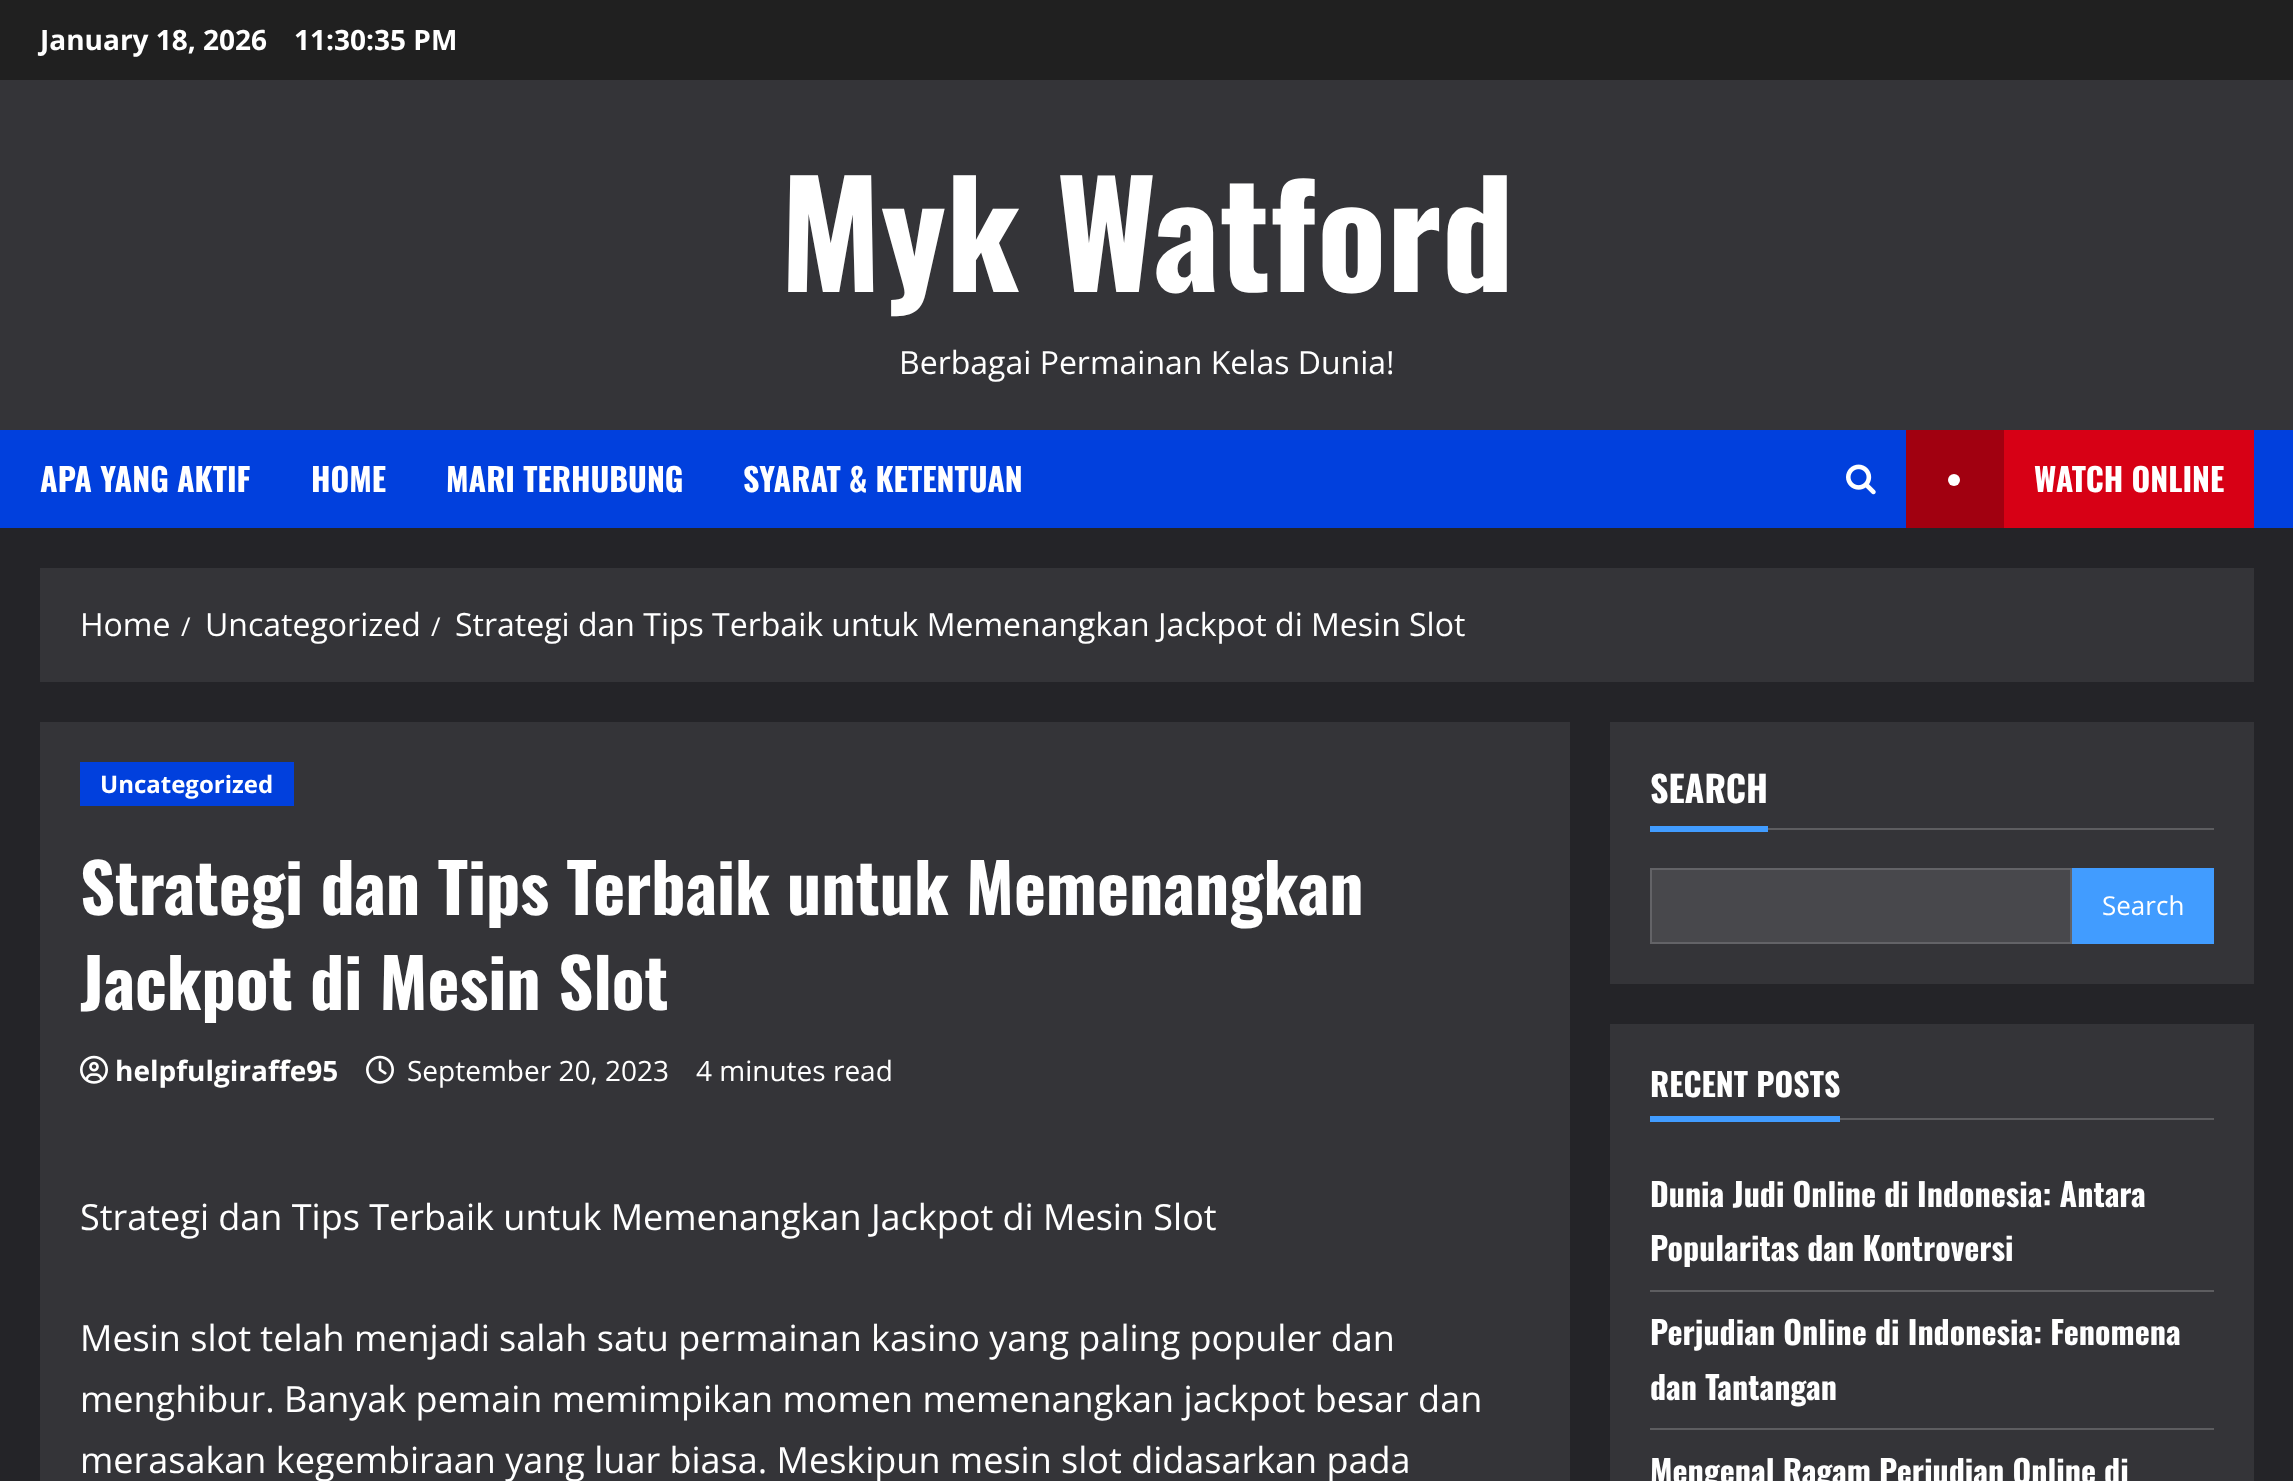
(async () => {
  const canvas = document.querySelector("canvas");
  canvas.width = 2293;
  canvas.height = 1481;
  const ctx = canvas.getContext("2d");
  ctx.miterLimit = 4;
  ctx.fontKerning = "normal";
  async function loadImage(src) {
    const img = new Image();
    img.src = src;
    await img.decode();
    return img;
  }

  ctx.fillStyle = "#242428";
  ctx.fillRect(0, 0, 2293, 1481);
  for (const [x, y, w, h, color] of [
    [0, 0, 2293, 80, "#202020"],
    [0, 80, 2293, 350, "#343438"],
    [0, 430, 2293, 98, "#0140dd"],
  ]) {
    ctx.fillStyle = color;
    ctx.fillRect(x, y, w, h);
  }
  ctx.drawImage(await loadImage("img/1.png"), 1846, 464, 30, 31);
  ctx.fillStyle = "#d70015";
  ctx.fillRect(2004, 430, 250, 98);
  ctx.fillStyle = "#a10010";
  ctx.fillRect(1906, 430, 98, 98);
  ctx.fillStyle = "#ffffff";
  ctx.beginPath();
  ctx.arc(1954, 480, 6, 0, Math.PI * 2);
  ctx.fill();
  for (const [x, y, w, h, color] of [
    [40, 568, 2214, 114, "#343438"],
    [40, 722, 1530, 759, "#343438"],
    [80, 762, 214, 44, "#0140dd"],
  ]) {
    ctx.fillStyle = color;
    ctx.fillRect(x, y, w, h);
  }
  ctx.drawImage(await loadImage("img/2.png"), 80, 1055, 28, 29);
  ctx.drawImage(await loadImage("img/3.png"), 366, 1055, 28, 29);
  for (const [x, y, w, h, color] of [
    [1610, 722, 644, 262, "#343438"],
    [1650, 826, 118, 6, "#419cff"],
    [1768, 828, 446, 2, "#5d5d60"],
  ]) {
    ctx.fillStyle = color;
    ctx.fillRect(x, y, w, h);
  }
  ctx.fillStyle = "#48484c";
  ctx.beginPath();
  ctx.rect(1651, 869, 420, 74);
  ctx.fill();
  ctx.strokeStyle = "#636367";
  ctx.lineWidth = 2;
  ctx.stroke();
  for (const [x, y, w, h, color] of [
    [2072, 868, 142, 76, "#419cff"],
    [1610, 1024, 644, 457, "#343438"],
    [1650, 1116, 190, 6, "#419cff"],
    [1840, 1118, 374, 2, "#5d5d60"],
    [1650, 1290, 564, 2, "#5d5d60"],
    [1650, 1428, 564, 2, "#5d5d60"],
  ]) {
    ctx.fillStyle = color;
    ctx.fillRect(x, y, w, h);
  }
  ctx.font = "bold 28px Open Sans";
  ctx.fillStyle = "#ffffff";
  ctx.fillText("January 18, 2026", 40, 50);
  ctx.fillText("11:30:35 PM", 294, 50);
  ctx.font = "bold 144px Oswald";
  ctx.fillText("Myk Watford", 780, 292);
  ctx.font = "32px Open Sans";
  ctx.fillText("Berbagai Permainan Kelas Dunia!", 899, 374);
  ctx.font = "bold 32px Oswald";
  for (const [text, x, y] of [
    ["APA YANG AKTIF", 40, 492],
    ["HOME", 311, 492],
    ["MARI TERHUBUNG", 446, 492],
    ["SYARAT & KETENTUAN", 743, 492],
    ["WATCH ONLINE", 2034, 492],
  ]) {
    ctx.fillText(text, x, y);
  }
  ctx.font = "32px Open Sans";
  ctx.fillText("Home", 80, 636);
  ctx.font = "26px Open Sans";
  ctx.fillText("/", 181, 636);
  ctx.font = "32px Open Sans";
  ctx.fillText("Uncategorized", 205, 636);
  ctx.font = "26px Open Sans";
  ctx.fillText("/", 431, 636);
  ctx.font = "32px Open Sans";
  ctx.fillText("Strategi dan Tips Terbaik untuk Memenangkan Jackpot di Mesin Slot", 455, 636);
  ctx.font = "bold 24px Open Sans";
  ctx.fillText("Uncategorized", 100, 793);
  ctx.font = "bold 68px Oswald";
  ctx.fillText("Strategi dan Tips Terbaik untuk Memenangkan", 80, 915);
  ctx.fillText("Jackpot di Mesin Slot", 80, 1010);
  ctx.font = "bold 28px Open Sans";
  ctx.fillText("helpfulgiraffe95", 115, 1081);
  ctx.font = "28px Open Sans";
  ctx.fillText("September 20, 2023", 407, 1081);
  ctx.fillText("4 minutes read", 696, 1081);
  ctx.font = "36px Open Sans";
  for (const [text, x, y] of [
    ["Strategi dan Tips Terbaik untuk Memenangkan Jackpot di Mesin Slot", 80, 1230],
    ["Mesin slot telah menjadi salah satu permainan kasino yang paling populer dan", 80, 1351],
    ["menghibur. Banyak pemain memimpikan momen memenangkan jackpot besar dan", 80, 1412],
    ["merasakan kegembiraan yang luar biasa. Meskipun mesin slot didasarkan pada", 80, 1473],
  ]) {
    ctx.fillText(text, x, y);
  }
  ctx.font = "bold 36px Oswald";
  ctx.fillText("SEARCH", 1650, 803);
  ctx.font = "26px Open Sans";
  ctx.fillText("Search", 2102, 915);
  ctx.font = "bold 32px Oswald";
  for (const [text, x, y] of [
    ["RECENT POSTS", 1650, 1097],
    ["Dunia Judi Online di Indonesia: Antara", 1650, 1207],
    ["Popularitas dan Kontroversi", 1650, 1261],
    ["Perjudian Online di Indonesia: Fenomena", 1650, 1345],
    ["dan Tantangan", 1650, 1400],
    ["Mengenal Ragam Perjudian Online di", 1650, 1484],
  ]) {
    ctx.fillText(text, x, y);
  }
})();
